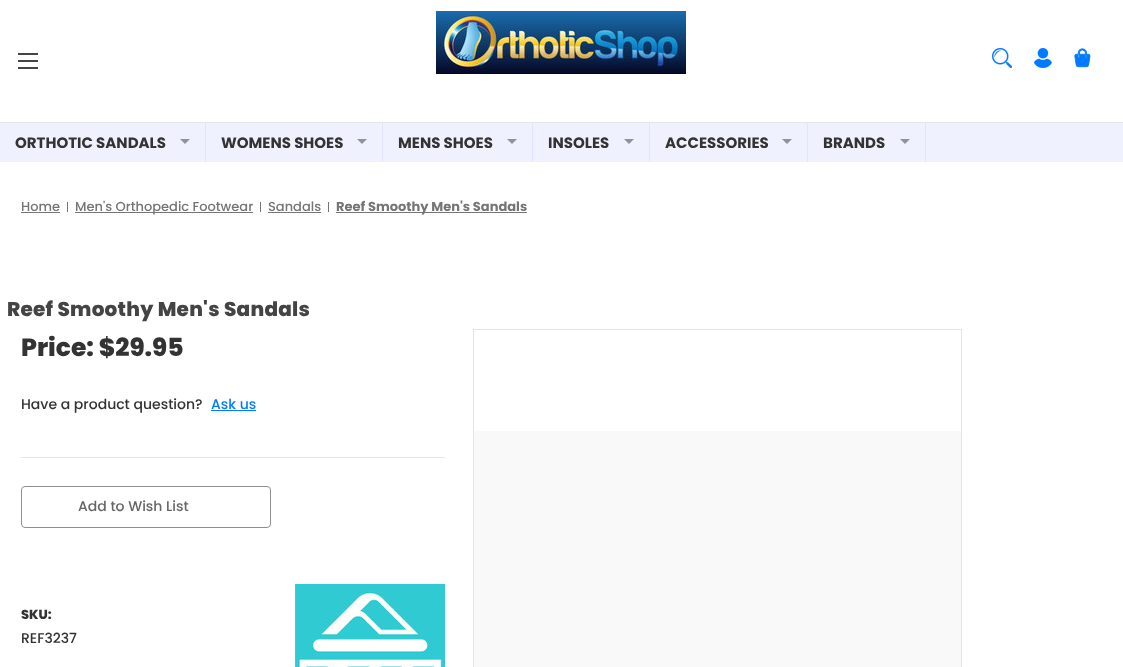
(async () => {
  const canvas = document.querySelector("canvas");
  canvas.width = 1123;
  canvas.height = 667;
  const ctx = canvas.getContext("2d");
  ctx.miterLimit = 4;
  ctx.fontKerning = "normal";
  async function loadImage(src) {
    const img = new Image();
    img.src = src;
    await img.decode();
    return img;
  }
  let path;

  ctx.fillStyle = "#ffffff";
  ctx.fillRect(0, 0, 1123, 667);
  for (const [x, y, w, h, color] of [
    [0, 122, 1123, 1, "#e5e5e5"],
    [18, 60, 20, 2, "#444444"],
    [18, 53, 20, 2, "#444444"],
    [18, 67, 20, 2, "#444444"],
  ]) {
    ctx.fillStyle = color;
    ctx.fillRect(x, y, w, h);
  }
  ctx.drawImage(await loadImage("img/1.png"), 436, 11, 250, 63);
  ctx.drawImage(await loadImage("img/2.png"), 992, 48, 20, 20);
  ctx.drawImage(await loadImage("img/3.png"), 1034, 48, 18, 20);
  ctx.drawImage(await loadImage("img/4.png"), 1074, 48, 17, 20);
  ctx.fillStyle = "#f0f1ff";
  ctx.fillRect(0, 123, 1123, 39);
  ctx.fillStyle = "#e1e3ff";
  ctx.fillRect(205, 123, 1, 39);
  ctx.fillStyle = "#929299";
  path = new Path2D("M180 139H190L185 144Z");
  ctx.fill(path);
  ctx.fillStyle = "#e1e3ff";
  ctx.fillRect(382, 123, 1, 39);
  ctx.fillStyle = "#929299";
  path = new Path2D("M357 139H367L362 144Z");
  ctx.fill(path);
  ctx.fillStyle = "#e1e3ff";
  ctx.fillRect(532, 123, 1, 39);
  ctx.fillStyle = "#929299";
  path = new Path2D("M507 139H517L512 144Z");
  ctx.fill(path);
  ctx.fillStyle = "#e1e3ff";
  ctx.fillRect(649, 123, 1, 39);
  ctx.fillStyle = "#929299";
  path = new Path2D("M624 139H634L629 144Z");
  ctx.fill(path);
  ctx.fillStyle = "#e1e3ff";
  ctx.fillRect(807, 123, 1, 39);
  ctx.fillStyle = "#929299";
  path = new Path2D("M782 139H792L787 144Z");
  ctx.fill(path);
  ctx.fillStyle = "#e1e3ff";
  ctx.fillRect(925, 123, 1, 39);
  ctx.fillStyle = "#929299";
  path = new Path2D("M900 139H910L905 144Z");
  ctx.fill(path);
  for (const [x, y, w, h, color] of [
    [21, 212, 39, 1, "#757575"],
    [67, 202, 1, 10, "#757575"],
    [75, 212, 178, 1, "#757575"],
    [260, 202, 1, 10, "#757575"],
    [268, 212, 53, 1, "#757575"],
    [328, 202, 1, 10, "#757575"],
    [336, 212, 191, 1, "#757575"],
    [21, 457, 424, 1, "#e5e5e5"],
    [211, 410, 45, 1, "#007bff"],
  ]) {
    ctx.fillStyle = color;
    ctx.fillRect(x, y, w, h);
  }
  ctx.beginPath();
  ctx.roundRect(21.5, 486.5, 249, 41, 3.5);
  ctx.strokeStyle = "#8f8f8f";
  ctx.stroke();
  ctx.drawImage(await loadImage("img/5.png"), 295, 584, 150, 83);
  ctx.strokeStyle = "#e5e5e5";
  ctx.strokeRect(473.5, 329.5, 488, 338);
  ctx.fillStyle = "#f9f9f9";
  ctx.fillRect(474, 431, 487, 236);
  ctx.font = "bold 15px Poppins";
  ctx.fillStyle = "#333333";
  for (const [text, x, y] of [
    ["ORTHOTIC SANDALS", 15, 148],
    ["WOMENS SHOES", 221, 148],
    ["MENS SHOES", 398, 148],
    ["INSOLES", 548, 148],
    ["ACCESSORIES", 665, 148],
    ["BRANDS", 823, 148],
  ]) {
    ctx.fillText(text, x, y);
  }
  ctx.font = "500 13px Poppins";
  ctx.fillStyle = "#757575";
  for (const [text, x, y] of [
    ["Home", 21, 211],
    ["Men's Orthopedic Footwear", 75, 211],
    ["Sandals", 268, 211],
  ]) {
    ctx.fillText(text, x, y);
  }
  ctx.font = "bold 13px Poppins";
  ctx.fillText("Reef Smoothy Men's Sandals", 336, 211);
  ctx.letterSpacing = "0.25px";
  ctx.font = "800 20px Poppins";
  ctx.fillStyle = "#444444";
  ctx.fillText("Reef Smoothy Men's Sandals", 7, 316);
  ctx.letterSpacing = "0px";
  ctx.font = "800 25px Poppins";
  ctx.fillStyle = "#333333";
  ctx.fillText("Price: $29.95", 21, 356);
  ctx.font = "500 14px Poppins";
  ctx.fillText("Have a product question?", 21, 409);
  ctx.fillStyle = "#007bff";
  ctx.fillText("Ask us", 211, 409);
  ctx.fillStyle = "#666666";
  ctx.fillText("Add to Wish List", 78, 511);
  ctx.font = "800 13px Poppins";
  ctx.fillStyle = "#333333";
  ctx.fillText("SKU:", 21, 619);
  ctx.font = "500 14px Poppins";
  ctx.fillText("REF3237", 21, 643);
})();
